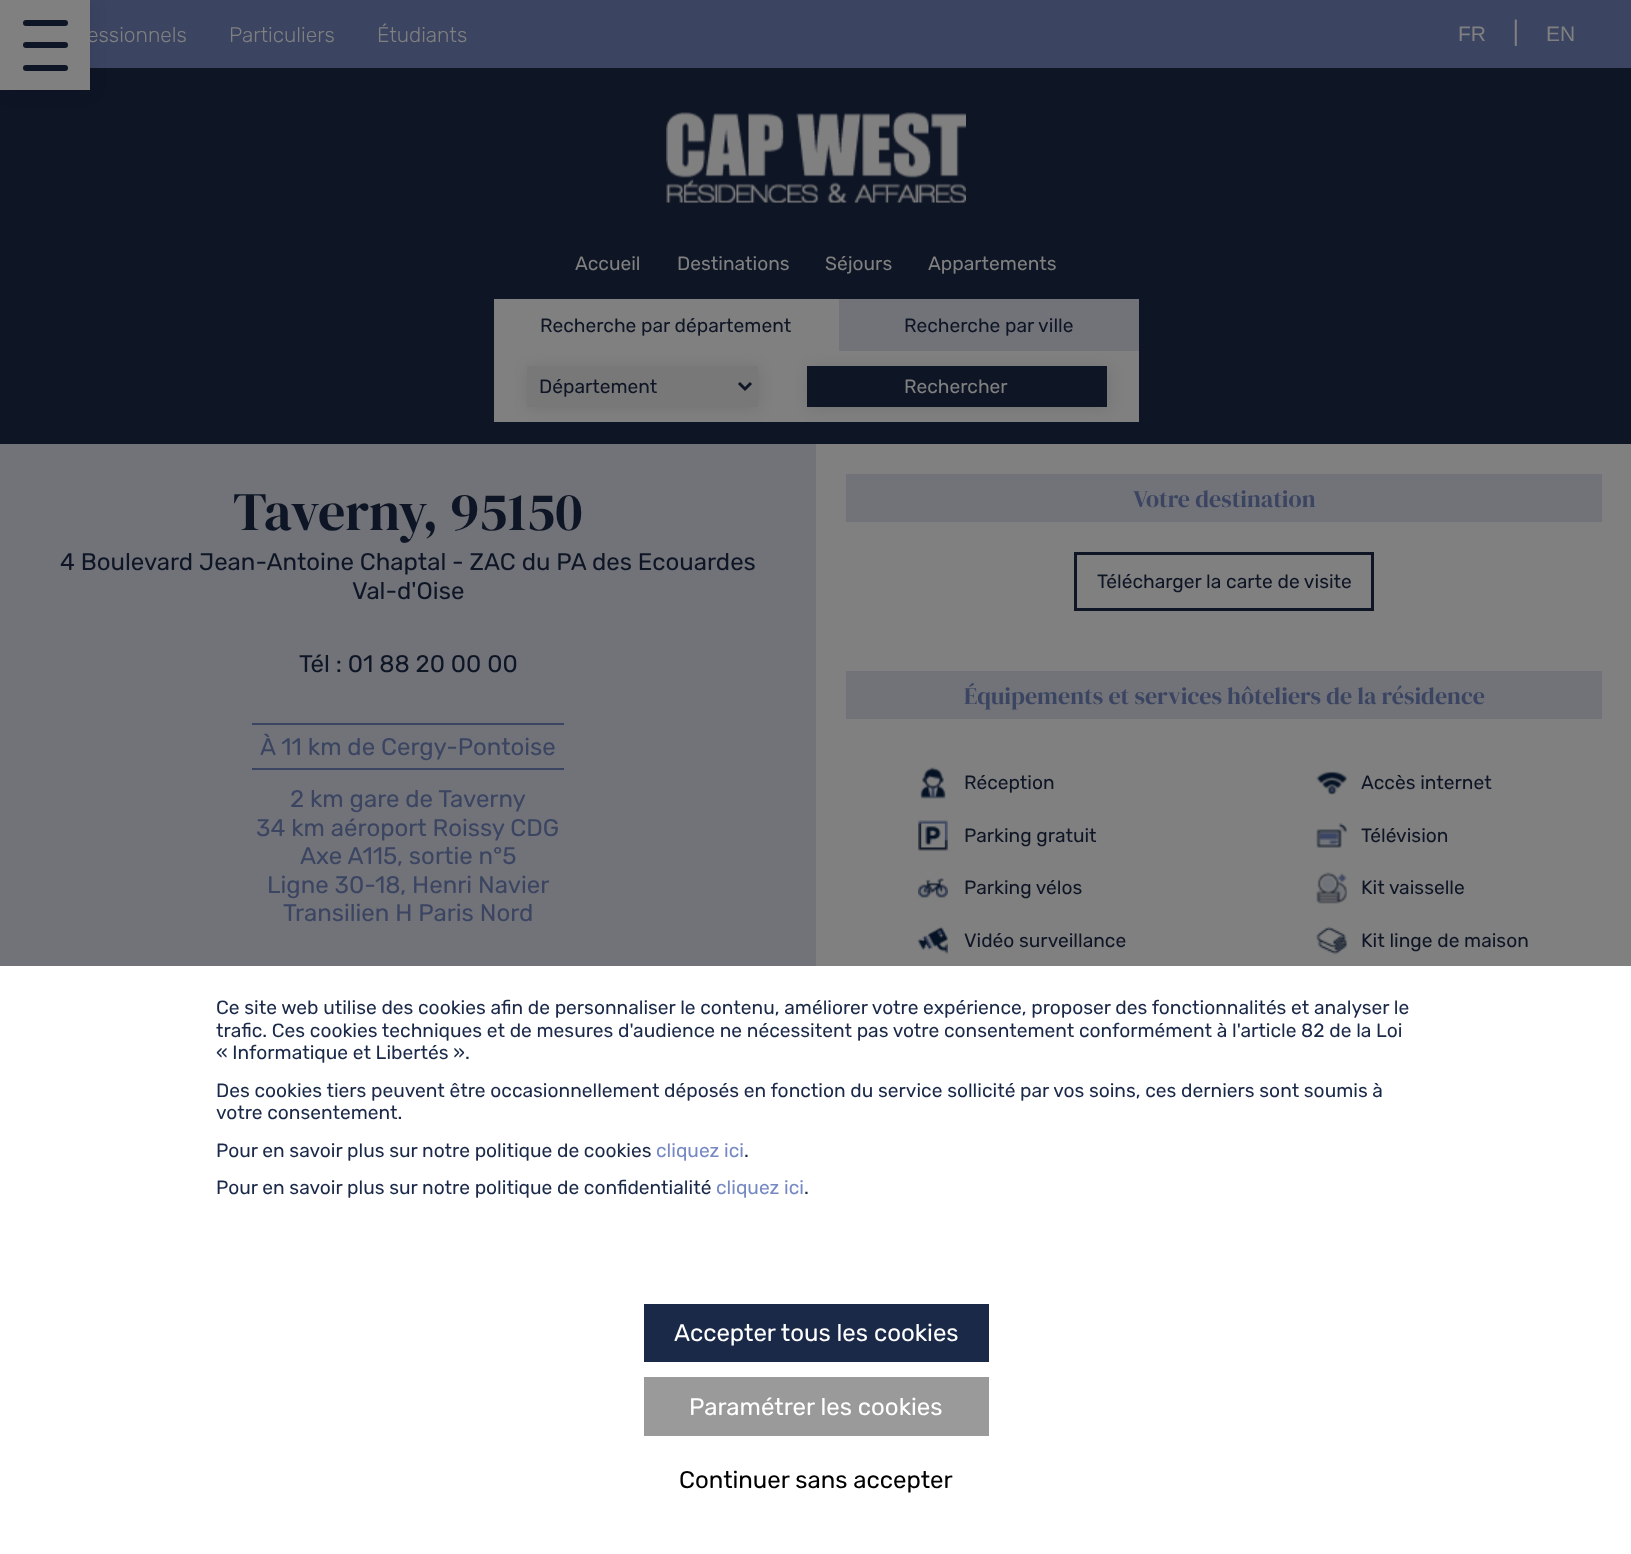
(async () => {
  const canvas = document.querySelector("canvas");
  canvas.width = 1631;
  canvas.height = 1554;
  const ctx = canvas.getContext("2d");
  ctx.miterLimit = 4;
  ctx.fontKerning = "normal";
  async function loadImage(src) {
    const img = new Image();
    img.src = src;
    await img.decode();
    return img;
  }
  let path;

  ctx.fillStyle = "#808080";
  ctx.fillRect(0, 0, 1631, 1554);
  ctx.fillStyle = "#3b4562";
  ctx.fillRect(90, 0, 1541, 68);
  ctx.fillStyle = "#0e1525";
  ctx.fillRect(0, 68, 1631, 376);
  ctx.drawImage(await loadImage("img/1.png"), 666, 112, 300, 91);
  for (const [x, y, w, h, color] of [
    [494, 299, 345, 52, "#808080"],
    [839, 299, 300, 52, "#717379"],
    [494, 351, 645, 71, "#808080"],
  ]) {
    ctx.fillStyle = color;
    ctx.fillRect(x, y, w, h);
  }
  ctx.fillStyle = "rgba(0, 0, 0, 0.1)";
  ctx.filter = "blur(7.5px)";
  ctx.beginPath();
  ctx.rect(528, 368, 231, 40);
  ctx.fill();
  ctx.filter = "none";
  ctx.fillStyle = "#787878";
  ctx.fillRect(527, 366, 231, 41);
  path = new Path2D("M739 383L745 389L751 383");
  ctx.strokeStyle = "#0e1525";
  ctx.lineWidth = 3;
  ctx.stroke(path);
  ctx.fillStyle = "rgba(0, 0, 0, 0.1)";
  ctx.filter = "blur(7.5px)";
  ctx.beginPath();
  ctx.rect(809, 368, 300, 40);
  ctx.fill();
  ctx.filter = "none";
  ctx.fillStyle = "#0e1525";
  ctx.fillRect(807, 366, 300, 41);
  ctx.fillStyle = "rgba(0, 0, 0, 0.1)";
  ctx.filter = "blur(7.5px)";
  ctx.beginPath();
  ctx.rect(2, 2, 90, 90);
  ctx.fill();
  ctx.filter = "none";
  ctx.fillStyle = "#808080";
  ctx.fillRect(0, 0, 90, 90);
  ctx.fillStyle = "#0e1525";
  ctx.beginPath();
  ctx.roundRect(23, 42, 45, 6, 3);
  ctx.fill();
  ctx.beginPath();
  ctx.roundRect(23, 20, 45, 6, 3);
  ctx.fill();
  ctx.beginPath();
  ctx.roundRect(23, 65, 45, 6, 3);
  ctx.fill();
  for (const [x, y, w, h, color] of [
    [0, 444, 816, 522, "#717379"],
    [252, 723, 312, 2, "#3b4562"],
    [252, 768, 312, 2, "#3b4562"],
    [846, 474, 756, 48, "#717379"],
  ]) {
    ctx.fillStyle = color;
    ctx.fillRect(x, y, w, h);
  }
  ctx.strokeRect(1075.5, 553.5, 297, 56);
  ctx.fillRect(846, 671, 756, 48);
  ctx.drawImage(await loadImage("img/2.png"), 920, 767, 26, 32);
  ctx.drawImage(await loadImage("img/3.png"), 918, 820, 30, 31);
  ctx.drawImage(await loadImage("img/4.png"), 918, 878, 30, 20);
  ctx.drawImage(await loadImage("img/5.png"), 918, 926, 30, 29);
  ctx.drawImage(await loadImage("img/6.png"), 1316, 771, 31, 24);
  ctx.drawImage(await loadImage("img/7.png"), 1316, 823, 31, 25);
  ctx.drawImage(await loadImage("img/8.png"), 1316, 872, 31, 32);
  ctx.drawImage(await loadImage("img/9.png"), 1316, 926, 31, 29);
  for (const [x, y, w, h, color] of [
    [0, 966, 1631, 588, "#ffffff"],
    [644, 1304, 345, 58, "#1b2949"],
    [644, 1377, 345, 59, "#9a9a9a"],
  ]) {
    ctx.fillStyle = color;
    ctx.fillRect(x, y, w, h);
  }
  ctx.font = "300 21px Rubik";
  ctx.fillStyle = "#808080";
  for (const [text, x, y] of [
    ["essionnels", 87, 42],
    ["Particuliers", 229, 42],
    ["Étudiants", 377, 42],
  ]) {
    ctx.fillText(text, x, y);
  }
  ctx.font = "21px Liberation Sans";
  ctx.fillText("FR", 1458, 41);
  ctx.font = "24px Rubik";
  ctx.fillText("|", 1513, 41);
  ctx.font = "21px Liberation Sans";
  ctx.fillText("EN", 1546, 41);
  ctx.font = "19.2px Rubik";
  for (const [text, x, y] of [
    ["Accueil", 575, 270],
    ["Destinations", 677, 270],
    ["Séjours", 825, 270],
    ["Appartements", 928, 270],
  ]) {
    ctx.fillText(text, x, y);
  }
  ctx.fillStyle = "#0e1525";
  for (const [text, x, y] of [
    ["Recherche par département", 540, 332],
    ["Recherche par ville", 904, 332],
    ["Département", 539, 393],
  ]) {
    ctx.fillText(text, x, y);
  }
  ctx.fillStyle = "#808080";
  ctx.fillText("Rechercher", 904, 393);
  ctx.font = "54px DM Serif Display";
  ctx.fillStyle = "#0e1525";
  ctx.fillText("Taverny, 95150", 233, 530);
  ctx.font = "24px Rubik";
  for (const [text, x, y] of [
    ["4 Boulevard Jean-Antoine Chaptal - ZAC du PA des Ecouardes", 60, 570],
    ["Val-d'Oise", 352, 599],
    ["Tél : 01 88 20 00 00", 299, 672],
  ]) {
    ctx.fillText(text, x, y);
  }
  ctx.fillStyle = "#3b4562";
  for (const [text, x, y] of [
    ["À 11 km de Cergy-Pontoise", 260, 755],
    ["2 km gare de Taverny", 290, 807],
    ["34 km aéroport Roissy CDG", 256, 836],
    ["Axe A115, sortie n°5", 300, 864],
    ["Ligne 30-18, Henri Navier", 267, 893],
    ["Transilien H Paris Nord", 283, 921],
  ]) {
    ctx.fillText(text, x, y);
  }
  ctx.font = "24px DM Serif Display";
  ctx.fillText("Votre destination", 1133, 507);
  ctx.font = "19.2px Rubik";
  ctx.fillStyle = "#0e1525";
  ctx.fillText("Télécharger la carte de visite", 1097, 588);
  ctx.font = "24px DM Serif Display";
  ctx.fillStyle = "#3b4562";
  ctx.fillText("Équipements et services hôteliers de la résidence", 964, 704);
  ctx.font = "19.2px Rubik";
  ctx.fillStyle = "#0e1525";
  for (const [text, x, y] of [
    ["Réception", 964, 789],
    ["Parking gratuit", 964, 842],
    ["Parking vélos", 964, 894],
    ["Vidéo surveillance", 964, 947],
    ["Accès internet", 1361, 789],
    ["Télévision", 1361, 842],
    ["Kit vaisselle", 1361, 894],
    ["Kit linge de maison", 1361, 947],
  ]) {
    ctx.fillText(text, x, y);
  }
  ctx.fillStyle = "#1b2949";
  for (const [text, x, y] of [
    ["Ce site web utilise des cookies afin de personnaliser le contenu, améliorer votre expérience, proposer des fonctionnalités et analyser le", 216, 1014],
    ["trafic. Ces cookies techniques et de mesures d'audience ne nécessitent pas votre consentement conformément à l'article 82 de la Loi", 216, 1037],
    ["« Informatique et Libertés ».", 216, 1059],
    ["Des cookies tiers peuvent être occasionnellement déposés en fonction du service sollicité par vos soins, ces derniers sont soumis à", 216, 1097],
    ["votre consentement.", 216, 1119],
    ["Pour en savoir plus sur notre politique de cookies", 216, 1157],
  ]) {
    ctx.fillText(text, x, y);
  }
  ctx.fillStyle = "#7689c3";
  ctx.fillText("cliquez ici", 656, 1157);
  ctx.fillStyle = "#1b2949";
  ctx.fillText(".", 744, 1157);
  ctx.fillText("Pour en savoir plus sur notre politique de confidentialité", 216, 1194);
  ctx.fillStyle = "#7689c3";
  ctx.fillText("cliquez ici", 716, 1194);
  ctx.fillStyle = "#1b2949";
  ctx.fillText(".", 804, 1194);
  ctx.font = "24px Rubik";
  ctx.fillStyle = "#ffffff";
  ctx.fillText("Accepter tous les cookies", 674, 1341);
  ctx.fillText("Paramétrer les cookies", 689, 1415);
  ctx.fillStyle = "#000000";
  ctx.fillText("Continuer sans accepter", 679, 1488);
})();
